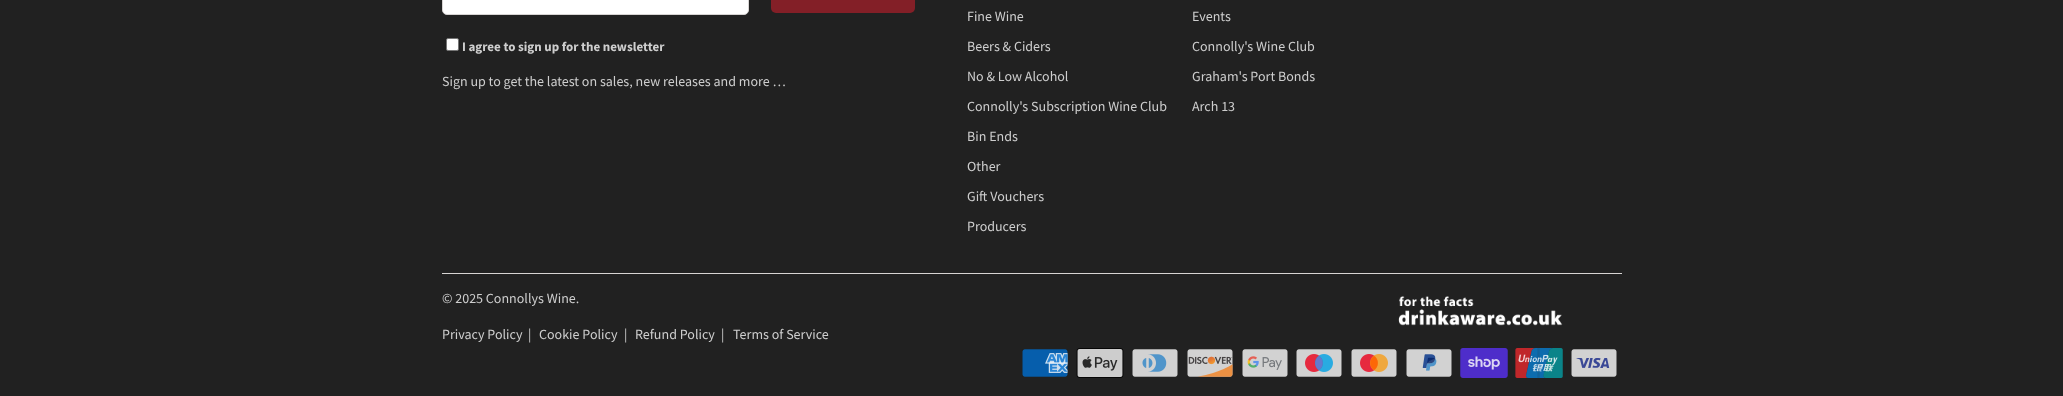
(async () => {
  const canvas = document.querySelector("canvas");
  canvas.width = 2063;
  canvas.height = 396;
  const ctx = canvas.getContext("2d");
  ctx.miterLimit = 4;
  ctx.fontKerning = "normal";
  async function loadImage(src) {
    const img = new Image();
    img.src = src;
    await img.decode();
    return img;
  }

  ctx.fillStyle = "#212121";
  ctx.fillRect(0, 0, 2063, 396);
  ctx.fillStyle = "#ffffff";
  ctx.beginPath();
  ctx.roundRect(442.5, -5.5, 306, 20, 4.5);
  ctx.fill();
  ctx.strokeStyle = "#d7d4d3";
  ctx.stroke();
  ctx.fillStyle = "#831f27";
  ctx.beginPath();
  ctx.roundRect(771, -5, 144, 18, 5);
  ctx.fill();
  ctx.fillStyle = "#ffffff";
  ctx.beginPath();
  ctx.roundRect(446.5, 38.5, 12, 12, 1.5);
  ctx.fill();
  ctx.strokeStyle = "#767676";
  ctx.stroke();
  ctx.fillStyle = "#d7d4d3";
  ctx.fillRect(442, 273, 1180, 1);
  ctx.drawImage(await loadImage("img/1.png"), 1398, 296, 165, 30);
  ctx.drawImage(await loadImage("img/2.png"), 1022, 349, 46, 28);
  ctx.drawImage(await loadImage("img/3.png"), 1076, 348, 48, 30);
  ctx.drawImage(await loadImage("img/4.png"), 1132, 349, 46, 28);
  ctx.drawImage(await loadImage("img/5.png"), 1187, 349, 46, 28);
  ctx.drawImage(await loadImage("img/6.png"), 1242, 349, 46, 28);
  ctx.drawImage(await loadImage("img/7.png"), 1296, 349, 46, 28);
  ctx.drawImage(await loadImage("img/8.png"), 1351, 349, 46, 28);
  ctx.drawImage(await loadImage("img/9.png"), 1406, 349, 46, 28);
  ctx.drawImage(await loadImage("img/10.png"), 1460, 348, 48, 30);
  ctx.drawImage(await loadImage("img/11.png"), 1515, 348, 48, 30);
  ctx.drawImage(await loadImage("img/12.png"), 1571, 349, 46, 28);
  ctx.font = "bold 13px Source Sans Pro";
  ctx.fillStyle = "#cecece";
  ctx.fillText("I agree to sign up for the newsletter", 462, 51);
  ctx.font = "14px Source Sans Pro";
  for (const [text, x, y] of [
    ["Sign up to get the latest on sales, new releases and more …", 442, 86],
    ["Fine Wine", 967, 21],
    ["Beers & Ciders", 967, 51],
    ["No & Low Alcohol", 967, 81],
    ["Connolly's Subscription Wine Club", 967, 111],
    ["Bin Ends", 967, 141],
    ["Other", 967, 171],
    ["Gift Vouchers", 967, 201],
    ["Producers", 967, 231],
    ["Events", 1192, 21],
    ["Connolly's Wine Club", 1192, 51],
    ["Graham's Port Bonds", 1192, 81],
    ["Arch 13", 1192, 111],
    ["© 2025 Connollys Wine.", 442, 303],
    ["Privacy Policy", 442, 339],
    ["|", 528, 339],
    ["Cookie Policy", 539, 339],
    ["|", 624, 339],
    ["Refund Policy", 635, 339],
    ["|", 721, 339],
    ["Terms of Service", 733, 339],
  ]) {
    ctx.fillText(text, x, y);
  }
})();
